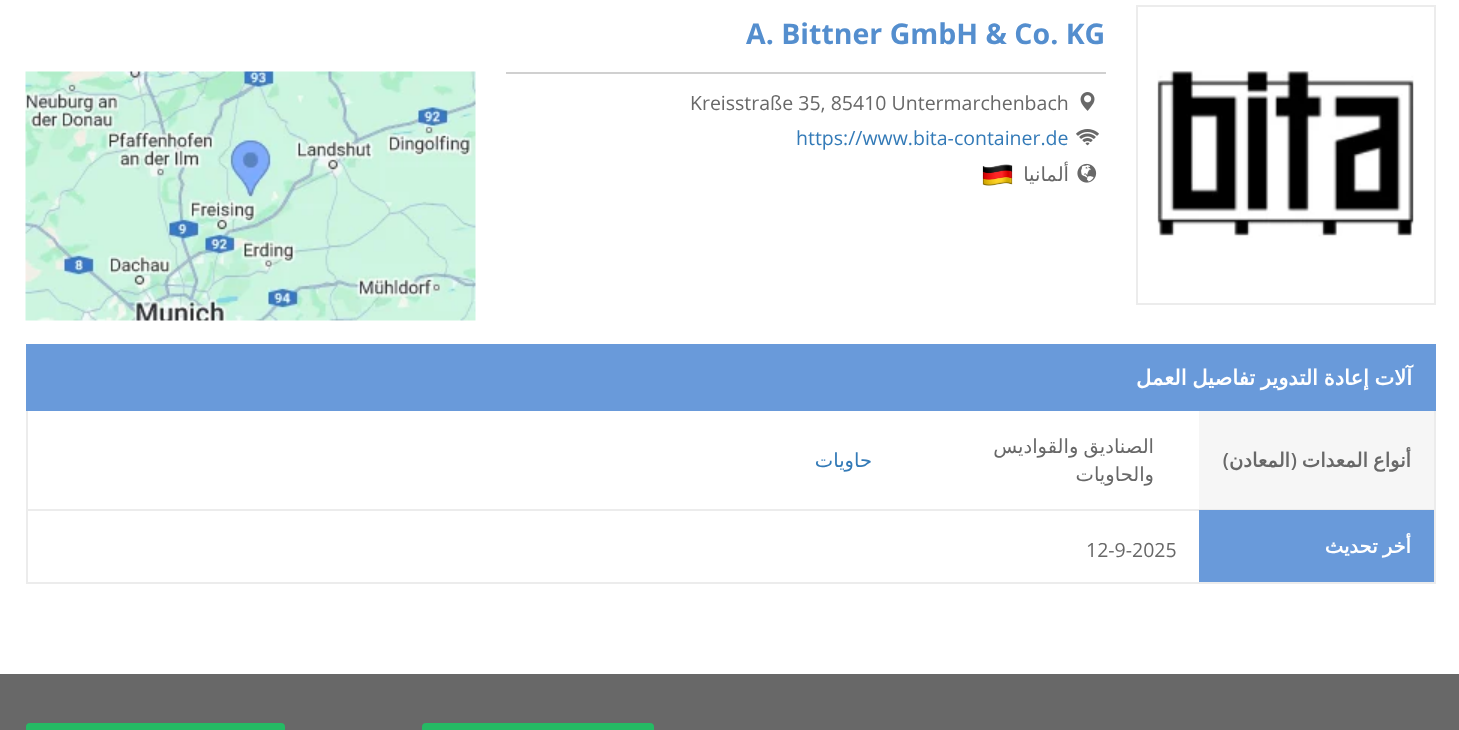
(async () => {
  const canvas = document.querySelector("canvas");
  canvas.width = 1459;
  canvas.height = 730;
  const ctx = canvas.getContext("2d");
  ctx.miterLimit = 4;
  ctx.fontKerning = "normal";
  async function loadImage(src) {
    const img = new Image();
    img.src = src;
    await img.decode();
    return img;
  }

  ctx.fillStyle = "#ffffff";
  ctx.fillRect(0, 0, 1459, 730);
  ctx.strokeStyle = "#ececec";
  ctx.lineWidth = 2;
  ctx.strokeRect(1137, 6, 298, 298);
  ctx.drawImage(await loadImage("img/1.png"), 1157, 70, 257, 168);
  ctx.fillStyle = "#d0d0d0";
  ctx.fillRect(506, 72, 600, 2);
  ctx.drawImage(await loadImage("img/2.png"), 1080, 92, 15, 19);
  ctx.drawImage(await loadImage("img/3.png"), 1076, 129, 23, 17);
  ctx.drawImage(await loadImage("img/4.png"), 1077, 163, 20, 20);
  ctx.drawImage(await loadImage("img/5.png"), 982, 164, 31, 22);
  ctx.drawImage(await loadImage("img/6.png"), 25, 71, 451, 250);
  for (const [x, y, w, h, color] of [
    [26, 509, 1410, 2, "#ececec"],
    [26, 344, 1410, 67, "#699ada"],
    [1434, 411, 2, 98, "#ececec"],
    [26, 411, 2, 98, "#ececec"],
    [1199, 411, 235, 98, "#f6f6f6"],
    [26, 582, 1410, 2, "#ececec"],
    [1434, 510, 2, 72, "#ececec"],
    [26, 510, 2, 72, "#ececec"],
    [1199, 510, 235, 72, "#699ada"],
    [0, 674, 1459, 56, "#686868"],
  ]) {
    ctx.fillStyle = color;
    ctx.fillRect(x, y, w, h);
  }
  ctx.fillStyle = "#25ba64";
  ctx.beginPath();
  ctx.roundRect(422, 723, 232, 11, 4);
  ctx.fill();
  ctx.beginPath();
  ctx.roundRect(26, 723, 259, 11, 4);
  ctx.fill();
  ctx.font = "bold 28.5px Open Sans";
  ctx.fillStyle = "#548ece";
  ctx.fillText("A. Bittner GmbH & Co. KG", 746, 44);
  ctx.font = "19.5px Open Sans";
  ctx.fillStyle = "#686868";
  ctx.fillText("Kreisstraße 35, 85410 Untermarchenbach", 690, 110);
  ctx.fillStyle = "#337ab7";
  ctx.fillText("https://www.bita-container.de", 796, 145);
  ctx.direction = "rtl";
  ctx.font = "19.5px DejaVu Sans";
  ctx.fillStyle = "#686868";
  ctx.fillText("ألمانيا", 1069, 181);
  ctx.wordSpacing = "-1px";
  ctx.font = "bold 21px DejaVu Sans";
  ctx.fillStyle = "#ffffff";
  ctx.fillText("آلات إعادة التدوير تفاصيل العمل", 1412, 385);
  ctx.font = "bold 19.5px DejaVu Sans";
  ctx.fillStyle = "#686868";
  ctx.fillText("أنواع المعدات", 1411, 467);
  ctx.wordSpacing = "0px";
  ctx.font = "600 19.5px Open Sans";
  ctx.fillText("(", 1297, 467);
  ctx.font = "bold 19.5px DejaVu Sans";
  ctx.fillText("المعادن", 1290, 467);
  ctx.font = "600 19.5px Open Sans";
  ctx.fillText(")", 1229, 467);
  ctx.wordSpacing = "-1px";
  ctx.font = "19.5px DejaVu Sans";
  ctx.fillText("الصناديق والقواديس", 1154, 453);
  ctx.wordSpacing = "0px";
  ctx.fillText("والحاويات", 1154, 481);
  ctx.fillStyle = "#337ab7";
  ctx.fillText("حاويات", 872, 467);
  ctx.wordSpacing = "-1px";
  ctx.font = "bold 19.5px DejaVu Sans";
  ctx.fillStyle = "#ffffff";
  ctx.fillText("أخر تحديث", 1411, 553);
  ctx.wordSpacing = "0px";
  ctx.direction = "ltr";
  ctx.font = "19.5px Open Sans";
  ctx.fillStyle = "#686868";
  ctx.fillText("12-9-2025", 1086, 557);
})();
